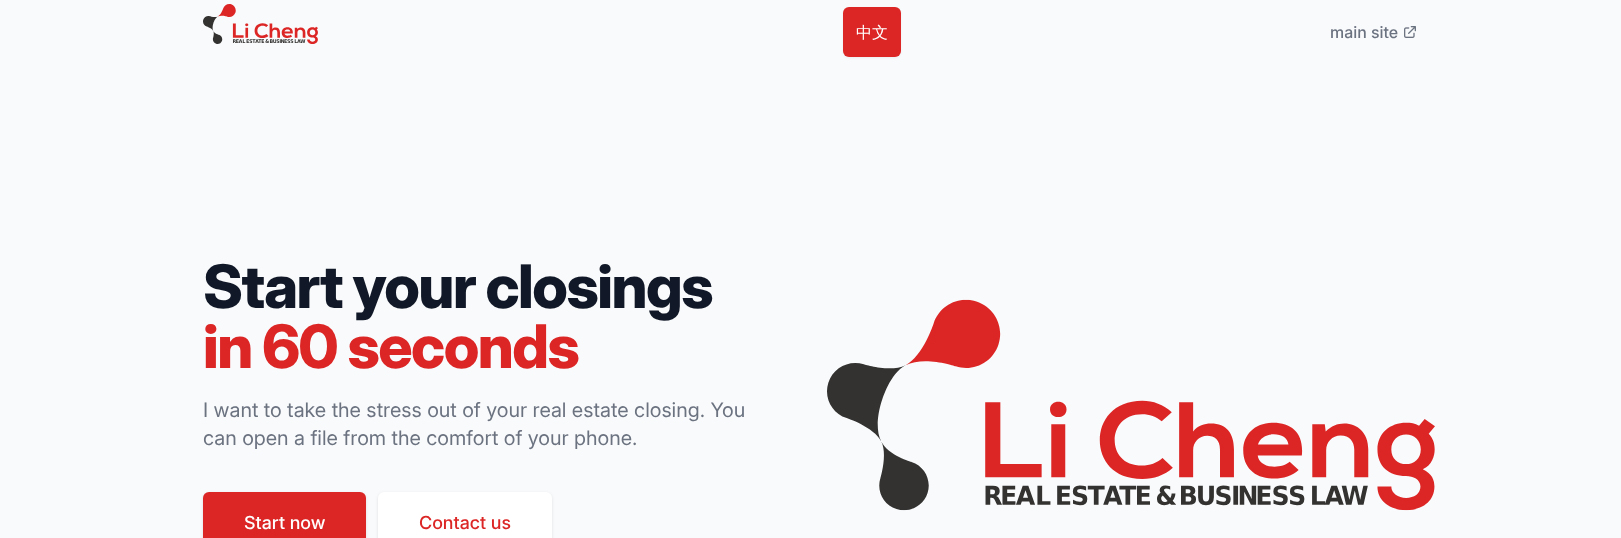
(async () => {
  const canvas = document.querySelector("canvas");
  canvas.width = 1621;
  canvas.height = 538;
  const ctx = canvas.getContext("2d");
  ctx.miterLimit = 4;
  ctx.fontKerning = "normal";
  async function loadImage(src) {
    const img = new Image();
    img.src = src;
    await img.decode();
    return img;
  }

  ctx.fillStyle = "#f9fafb";
  ctx.fillRect(0, 0, 1621, 538);
  ctx.drawImage(await loadImage("img/1.png"), 203, 4, 115, 40);
  ctx.fillStyle = "rgba(0, 0, 0, 0.05)";
  ctx.filter = "blur(1px)";
  ctx.beginPath();
  ctx.roundRect(843, 8, 58, 50, 6);
  ctx.fill();
  ctx.filter = "none";
  ctx.fillStyle = "#dc2626";
  ctx.beginPath();
  ctx.roundRect(843, 7, 58, 50, 6);
  ctx.fill();
  ctx.drawImage(await loadImage("img/2.png"), 1404, 26, 12, 12);
  ctx.fillStyle = "rgba(0, 0, 0, 0.1)";
  ctx.filter = "blur(1.5px)";
  ctx.beginPath();
  ctx.roundRect(203, 493, 163, 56, 6);
  ctx.fill();
  ctx.filter = "none";
  ctx.fillStyle = "#dc2626";
  ctx.beginPath();
  ctx.roundRect(203, 492, 163, 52, 6);
  ctx.fill();
  ctx.fillStyle = "rgba(0, 0, 0, 0.1)";
  ctx.filter = "blur(1.5px)";
  ctx.beginPath();
  ctx.roundRect(378, 493, 174, 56, 6);
  ctx.fill();
  ctx.filter = "none";
  ctx.fillStyle = "#ffffff";
  ctx.beginPath();
  ctx.roundRect(378, 492, 174, 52, 6);
  ctx.fill();
  ctx.drawImage(await loadImage("img/3.png"), 827, 299, 608, 212);
  ctx.font = "500 16px WenQuanYi Zen Hei";
  ctx.fillText("中文", 856, 38);
  ctx.font = "500 16px Inter";
  ctx.fillStyle = "#6b7280";
  ctx.fillText("main site", 1330, 38);
  ctx.letterSpacing = "-1.5px";
  ctx.font = "800 60px Inter";
  ctx.fillStyle = "#111827";
  ctx.fillText("Start your closings", 203, 308);
  ctx.fillStyle = "#dc2626";
  ctx.fillText("in 60 seconds", 203, 368);
  ctx.letterSpacing = "0px";
  ctx.font = "20px Inter";
  ctx.fillStyle = "#6b7280";
  ctx.fillText("I want to take the stress out of your real estate closing. You", 203, 417);
  ctx.fillText("can open a file from the comfort of your phone.", 203, 445);
  ctx.font = "500 18px 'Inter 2'";
  ctx.fillStyle = "#ffffff";
  ctx.fillText("Start now", 244, 529);
  ctx.fillStyle = "#dc2626";
  ctx.fillText("Contact us", 419, 529);
})();
